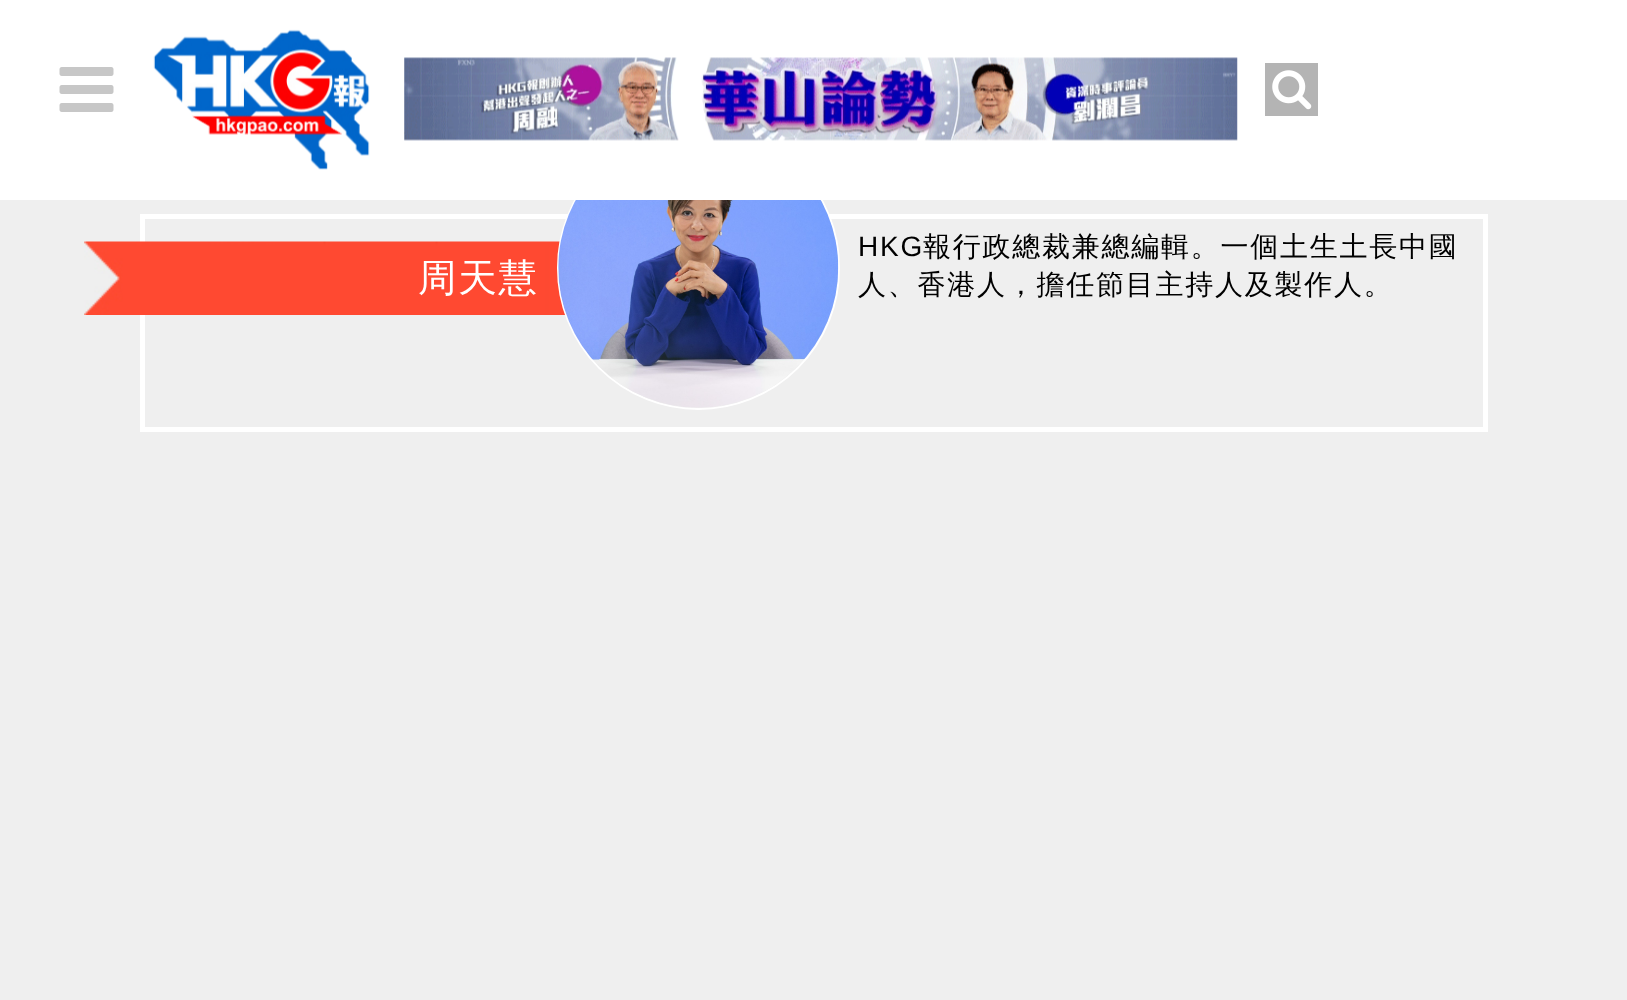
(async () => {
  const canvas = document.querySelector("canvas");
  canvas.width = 1627;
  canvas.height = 1000;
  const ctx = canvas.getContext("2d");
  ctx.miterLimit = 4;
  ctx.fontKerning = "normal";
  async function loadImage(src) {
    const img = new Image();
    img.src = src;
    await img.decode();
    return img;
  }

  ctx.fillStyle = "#efefef";
  ctx.fillRect(0, 0, 1627, 1000);
  ctx.strokeStyle = "#ffffff";
  ctx.lineWidth = 5;
  ctx.strokeRect(142.5, 216.5, 1343, 213);
  ctx.drawImage(await loadImage("img/5.png"), 84, 241, 483, 74);
  ctx.beginPath();
  ctx.roundRect(558, 127, 281, 282, 140.5);
  ctx.lineWidth = 2;
  ctx.stroke();
  ctx.fillStyle = "#ffffff";
  ctx.fillRect(0, 0, 1627, 200);
  ctx.drawImage(await loadImage("img/1.png"), 59, 67, 55, 45);
  ctx.drawImage(await loadImage("img/2.png"), 153, 29, 217, 141);
  ctx.drawImage(await loadImage("img/3.png"), 404, 57, 834, 84);
  ctx.fillStyle = "#b4b4b4";
  ctx.fillRect(1265, 63, 53, 53);
  ctx.drawImage(await loadImage("img/4.png"), 1272, 70, 40, 40);
  ctx.drawImage(await loadImage("img/6.png"), 558, 200, 281, 208);
  ctx.letterSpacing = "1.75px";
  ctx.font = "500 38.5px WenQuanYi Zen Hei";
  ctx.fillStyle = "#ffffff";
  ctx.fillText("周天慧", 418, 291);
  ctx.font = "28px Liberation Sans";
  ctx.fillStyle = "#000000";
  ctx.fillText("HKG", 858, 256);
  ctx.font = "500 28px WenQuanYi Zen Hei";
  ctx.fillText("報行政總裁兼總編輯。一個土生土長中國", 923, 256);
  ctx.fillText("人、香港人，擔任節目主持人及製作人。", 858, 294);
})();
